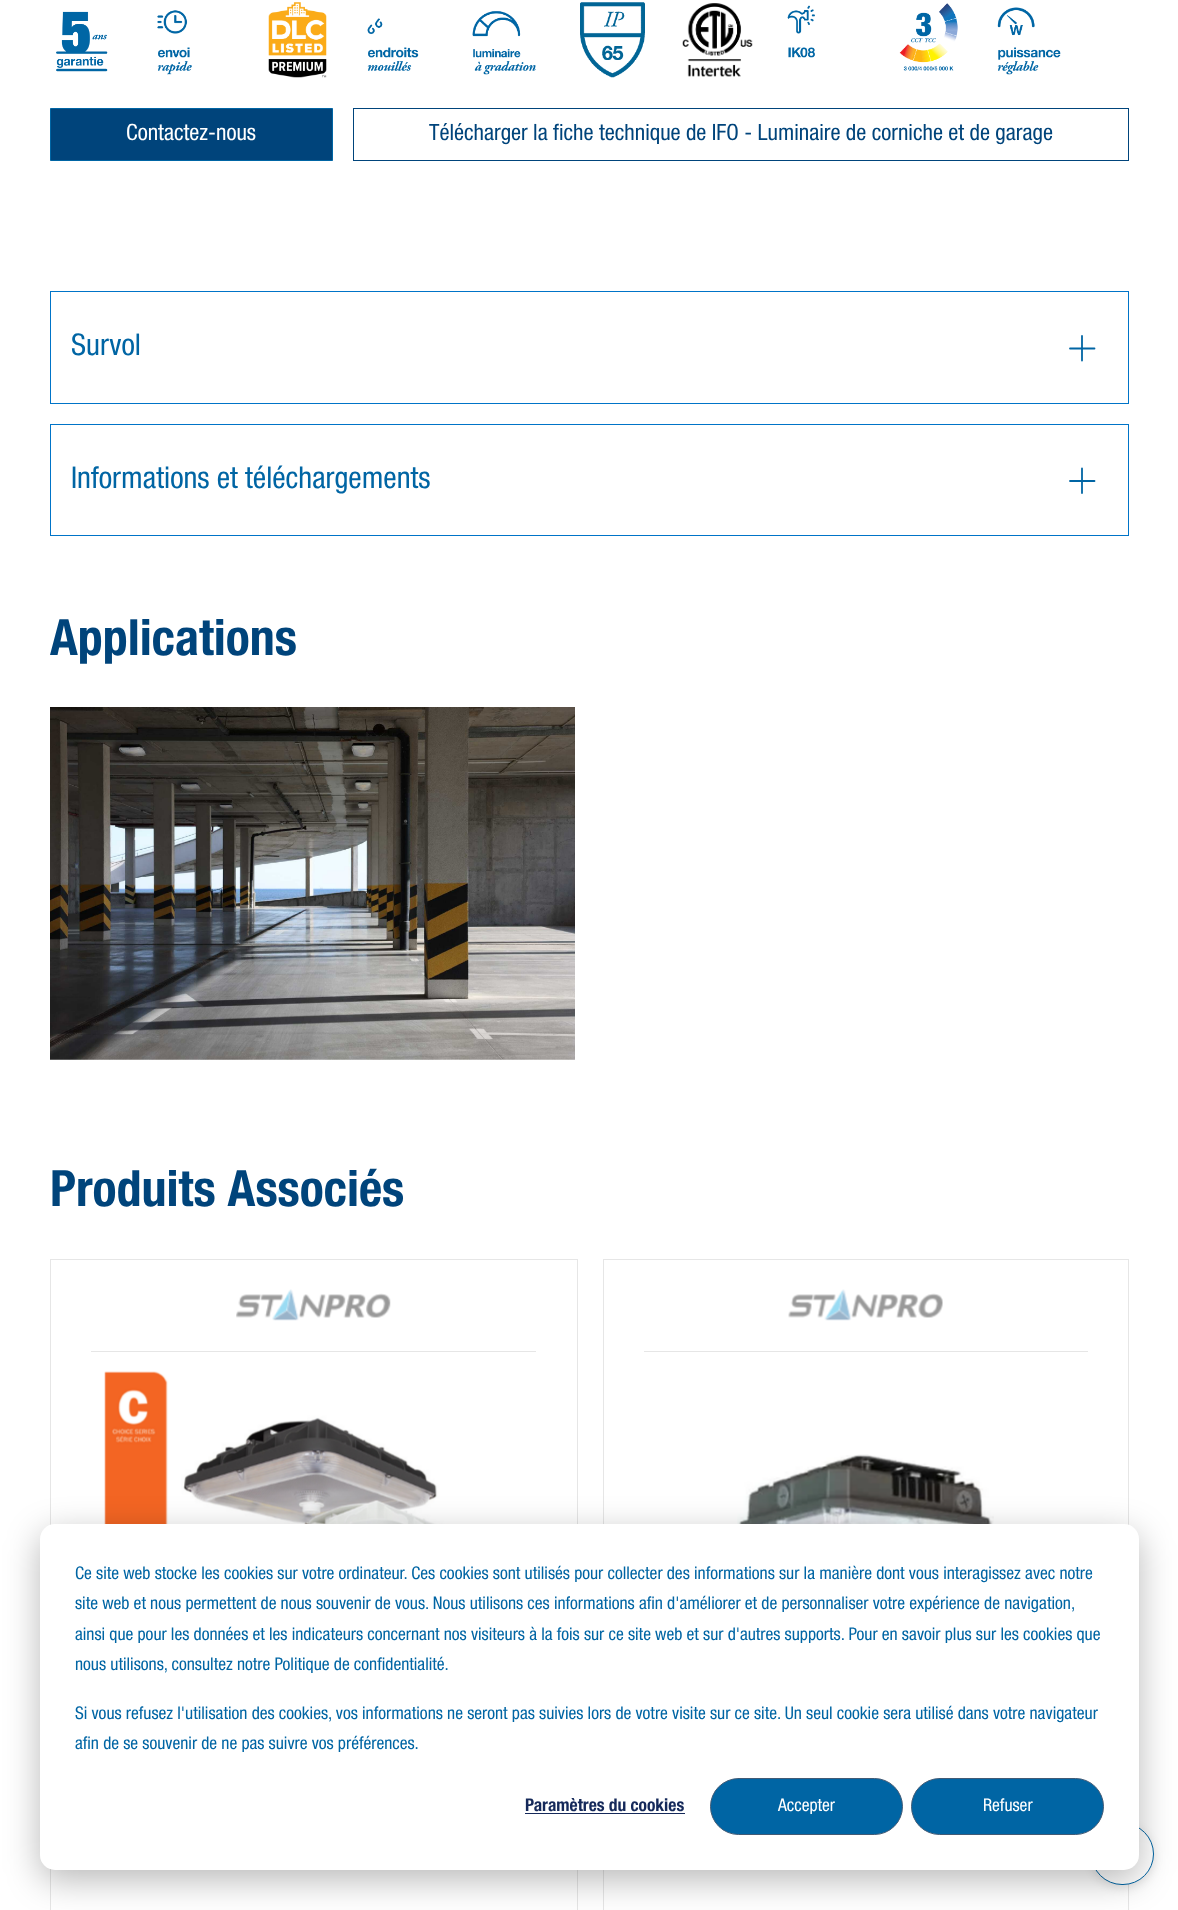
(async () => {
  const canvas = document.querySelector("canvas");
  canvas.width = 1178;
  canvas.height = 1910;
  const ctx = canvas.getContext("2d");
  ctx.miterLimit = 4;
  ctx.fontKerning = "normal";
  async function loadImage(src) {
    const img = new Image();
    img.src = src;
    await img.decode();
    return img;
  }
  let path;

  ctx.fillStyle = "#ffffff";
  ctx.fillRect(0, 0, 1178, 1910);
  ctx.drawImage(await loadImage("img/1.png"), 56, 11, 52, 61);
  ctx.drawImage(await loadImage("img/2.png"), 157, 10, 35, 65);
  ctx.drawImage(await loadImage("img/3.png"), 268, 2, 59, 76);
  ctx.drawImage(await loadImage("img/4.png"), 367, 18, 52, 53);
  ctx.drawImage(await loadImage("img/5.png"), 472, 11, 64, 64);
  ctx.drawImage(await loadImage("img/6.png"), 580, 2, 65, 76);
  ctx.drawImage(await loadImage("img/7.png"), 682, 3, 71, 74);
  ctx.drawImage(await loadImage("img/8.png"), 787, 5, 28, 53);
  ctx.drawImage(await loadImage("img/9.png"), 899, 3, 59, 68);
  ctx.drawImage(await loadImage("img/10.png"), 997, 7, 64, 68);
  ctx.fillStyle = "#00447b";
  ctx.beginPath();
  ctx.rect(50.5, 108.5, 282, 52);
  ctx.fill();
  ctx.strokeStyle = "#0065a4";
  ctx.stroke();
  ctx.strokeStyle = "#00447b";
  ctx.strokeRect(353.5, 108.5, 775, 52);
  ctx.strokeStyle = "#0074c8";
  ctx.strokeRect(50.5, 291.5, 1078, 112);
  path = new Path2D("M1070 348.5H1094.5M1082 360.5V336");
  ctx.strokeStyle = "#0065a4";
  ctx.lineWidth = 1.8;
  ctx.lineCap = "round";
  ctx.lineJoin = "round";
  ctx.stroke(path);
  ctx.strokeStyle = "#0074c8";
  ctx.lineWidth = 1;
  ctx.lineJoin = "miter";
  ctx.strokeRect(50.5, 424.5, 1078, 111);
  path = new Path2D("M1070 481H1094.5M1082 493V468.5");
  ctx.strokeStyle = "#0065a4";
  ctx.lineWidth = 1.8;
  ctx.lineJoin = "round";
  ctx.stroke(path);
  ctx.drawImage(await loadImage("img/11.png"), 50, 707, 525, 353);
  ctx.strokeStyle = "#e6e6e6";
  ctx.lineWidth = 1;
  ctx.lineJoin = "miter";
  ctx.strokeRect(50.5, 1259.5, 527, 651);
  ctx.fillStyle = "#e6e6e6";
  ctx.fillRect(91, 1351, 445, 1);
  ctx.drawImage(await loadImage("img/12.png"), 236, 1289, 155, 32);
  ctx.drawImage(await loadImage("img/13.png"), 104, 1371, 396, 153);
  ctx.strokeRect(603.5, 1259.5, 525, 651);
  ctx.fillRect(644, 1351, 444, 1);
  ctx.drawImage(await loadImage("img/14.png"), 788, 1289, 155, 32);
  ctx.drawImage(await loadImage("img/15.png"), 737, 1454, 257, 70);
  ctx.fillStyle = "rgba(0, 0, 0, 0.1)";
  ctx.filter = "blur(5px)";
  ctx.beginPath();
  ctx.roundRect(1091, 1825, 63, 63, 31.5);
  ctx.fill();
  ctx.filter = "none";
  ctx.fillStyle = "#ffffff";
  ctx.beginPath();
  ctx.roundRect(1091.5, 1823.5, 62, 61, 30.5);
  ctx.fill();
  ctx.strokeStyle = "#0065a4";
  ctx.stroke();
  ctx.fillStyle = "rgba(0, 0, 0, 0.28)";
  ctx.filter = "blur(17.5px)";
  ctx.beginPath();
  ctx.roundRect(40, 1534, 1099, 346, 15);
  ctx.fill();
  ctx.filter = "none";
  ctx.fillStyle = "#ffffff";
  ctx.beginPath();
  ctx.roundRect(40, 1524, 1099, 346, 15);
  ctx.fill();
  ctx.fillStyle = "#15295a";
  ctx.fillRect(525, 1813, 160, 1);
  ctx.fillStyle = "#0065a4";
  ctx.beginPath();
  ctx.roundRect(710.5, 1778.5, 192, 56, 28);
  ctx.fill();
  ctx.strokeStyle = "#425b76";
  ctx.stroke();
  ctx.beginPath();
  ctx.roundRect(911.5, 1778.5, 192, 56, 28);
  ctx.fill();
  ctx.stroke();
  ctx.font = "22.5px Helvetica Neue";
  ctx.fillStyle = "#ffffff";
  ctx.fillText("Contactez-nous", 126, 140);
  ctx.fillStyle = "#00447b";
  ctx.fillText("Télécharger la fiche technique de IFO - Luminaire de corniche et de garage", 429, 140);
  ctx.font = "30px Helvetica Neue";
  ctx.fillStyle = "#0065a4";
  ctx.fillText("Survol", 71, 355);
  ctx.fillText("Informations et téléchargements", 71, 488);
  ctx.font = "bold 50px Helvetica Neue";
  ctx.fillStyle = "#00447b";
  ctx.fillText("Applications", 50, 655);
  ctx.fillText("Produits Associés", 50, 1206);
  ctx.font = "17.5px Helvetica Neue";
  ctx.fillStyle = "#0065a4";
  for (const [text, x, y] of [
    ["Ce site web stocke les cookies sur votre ordinateur. Ces cookies sont utilisés pour collecter des informations sur la manière dont vous interagissez avec notre", 75, 1579],
    ["site web et nous permettent de nous souvenir de vous. Nous utilisons ces informations afin d'améliorer et de personnaliser votre expérience de navigation,", 75, 1609],
    ["ainsi que pour les données et les indicateurs concernant nos visiteurs à la fois sur ce site web et sur d'autres supports. Pour en savoir plus sur les cookies que", 75, 1640],
    ["nous utilisons, consultez notre Politique de confidentialité.", 75, 1670],
    ["Si vous refusez l'utilisation des cookies, vos informations ne seront pas suivies lors de votre visite sur ce site. Un seul cookie sera utilisé dans votre navigateur", 75, 1719],
    ["afin de se souvenir de ne pas suivre vos préférences.", 75, 1749],
  ]) {
    ctx.fillText(text, x, y);
  }
  ctx.font = "bold 17.5px Helvetica Neue";
  ctx.fillStyle = "#15295a";
  ctx.fillText("Paramètres du cookies", 525, 1811);
  ctx.font = "17.5px Helvetica Neue";
  ctx.fillStyle = "#ffffff";
  ctx.fillText("Accepter", 778, 1811);
  ctx.fillText("Refuser", 983, 1811);
})();
